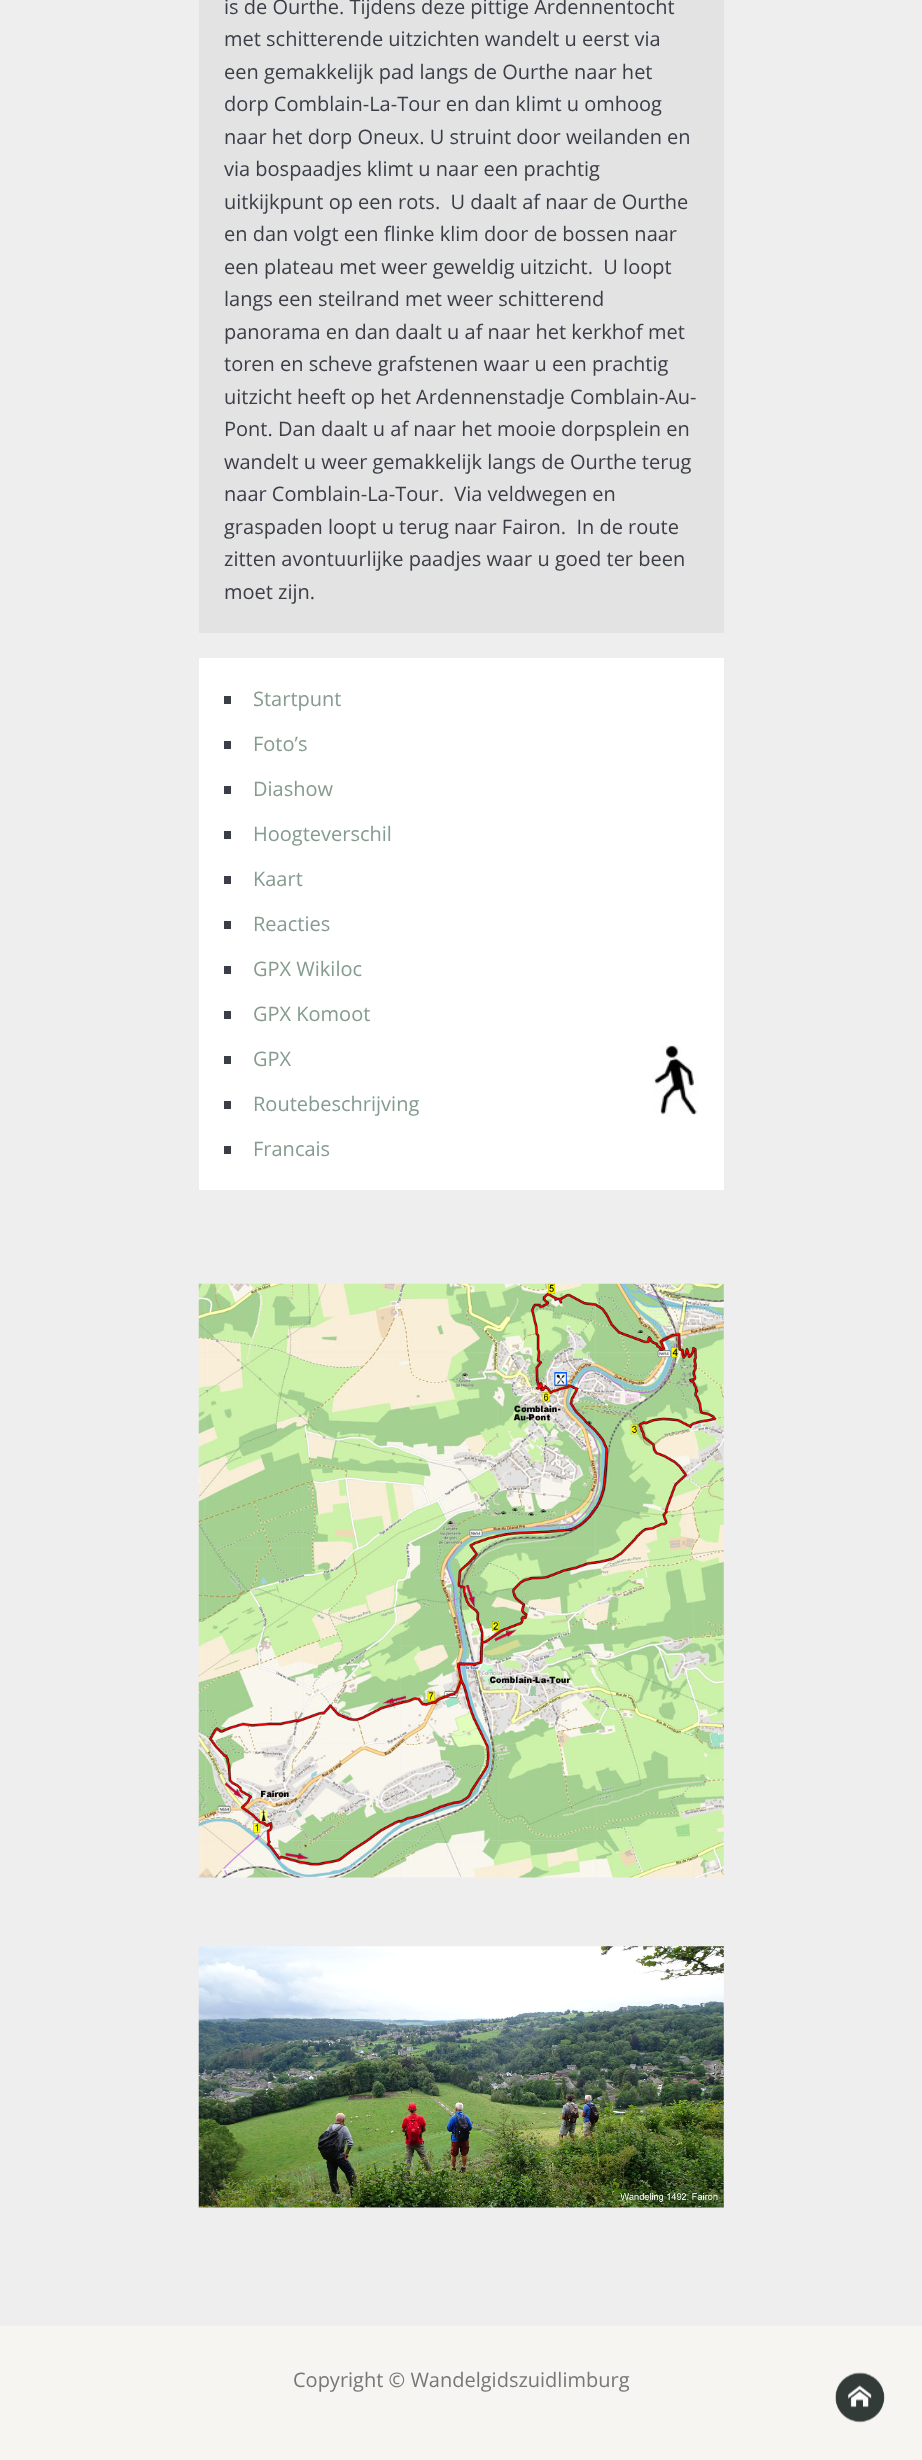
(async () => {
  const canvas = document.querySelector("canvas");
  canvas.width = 922;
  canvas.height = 2460;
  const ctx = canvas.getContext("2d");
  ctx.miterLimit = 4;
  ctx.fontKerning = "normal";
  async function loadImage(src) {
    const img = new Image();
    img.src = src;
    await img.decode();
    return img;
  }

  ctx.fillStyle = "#eeeeee";
  ctx.fillRect(0, 0, 922, 2460);
  for (const [x, y, w, h, color] of [
    [199, 0, 525, 633, "#e3e3e3"],
    [199, 658, 525, 532, "#ffffff"],
    [224, 696, 7, 8, "#3b3e47"],
    [224, 741, 7, 8, "#3b3e47"],
    [224, 786, 7, 8, "#3b3e47"],
    [224, 831, 7, 8, "#3b3e47"],
    [224, 876, 7, 8, "#3b3e47"],
    [224, 921, 7, 8, "#3b3e47"],
    [224, 966, 7, 8, "#3b3e47"],
    [224, 1011, 7, 8, "#3b3e47"],
    [224, 1056, 7, 8, "#3b3e47"],
  ]) {
    ctx.fillStyle = color;
    ctx.fillRect(x, y, w, h);
  }
  ctx.drawImage(await loadImage("img/1.png"), 653, 1045, 46, 71);
  ctx.fillRect(224, 1101, 7, 8);
  ctx.fillRect(224, 1146, 7, 8);
  ctx.drawImage(await loadImage("img/2.png"), 198, 1283, 526, 595);
  ctx.drawImage(await loadImage("img/3.png"), 198, 1946, 526, 262);
  ctx.fillStyle = "#f7f5f2";
  ctx.fillRect(0, 2326, 922, 134);
  ctx.drawImage(await loadImage("img/4.png"), 835, 2372, 50, 51);
  ctx.font = "20px Open Sans";
  ctx.fillStyle = "#3b3e47";
  for (const [text, x, y] of [
    ["is de Ourthe. Tijdens deze pittige Ardennentocht", 224, 14],
    ["met schitterende uitzichten wandelt u eerst via", 224, 46],
    ["een gemakkelijk pad langs de Ourthe naar het", 224, 79],
    ["dorp Comblain-La-Tour en dan klimt u omhoog", 224, 111],
    ["naar het dorp Oneux. U struint door weilanden en", 224, 144],
    ["via bospaadjes klimt u naar een prachtig", 224, 176],
    ["uitkijkpunt op een rots.  U daalt af naar de Ourthe", 224, 209],
    ["en dan volgt een flinke klim door de bossen naar", 224, 241],
    ["een plateau met weer geweldig uitzicht.  U loopt", 224, 274],
    ["langs een steilrand met weer schitterend", 224, 306],
    ["panorama en dan daalt u af naar het kerkhof met", 224, 339],
    ["toren en scheve grafstenen waar u een prachtig", 224, 371],
    ["uitzicht heeft op het Ardennenstadje Comblain-Au-", 224, 404],
    ["Pont. Dan daalt u af naar het mooie dorpsplein en", 224, 436],
    ["wandelt u weer gemakkelijk langs de Ourthe terug", 224, 469],
    ["naar Comblain-La-Tour.  Via veldwegen en", 224, 501],
    ["graspaden loopt u terug naar Fairon.  In de route", 224, 534],
    ["zitten avontuurlijke paadjes waar u goed ter been", 224, 566],
    ["moet zijn.", 224, 599],
  ]) {
    ctx.fillText(text, x, y);
  }
  ctx.fillStyle = "#859b8f";
  for (const [text, x, y] of [
    ["Startpunt", 253, 706],
    ["Foto’s", 253, 751],
    ["Diashow", 253, 796],
    ["Hoogteverschil", 253, 841],
    ["Kaart", 253, 886],
    ["Reacties", 253, 931],
    ["GPX Wikiloc", 253, 976],
    ["GPX Komoot", 253, 1021],
    ["GPX", 253, 1066],
    ["Routebeschrijving", 253, 1111],
    ["Francais", 253, 1156],
  ]) {
    ctx.fillText(text, x, y);
  }
  ctx.fillStyle = "#777777";
  ctx.fillText("Copyright © Wandelgidszuidlimburg", 293, 2387);
})();
